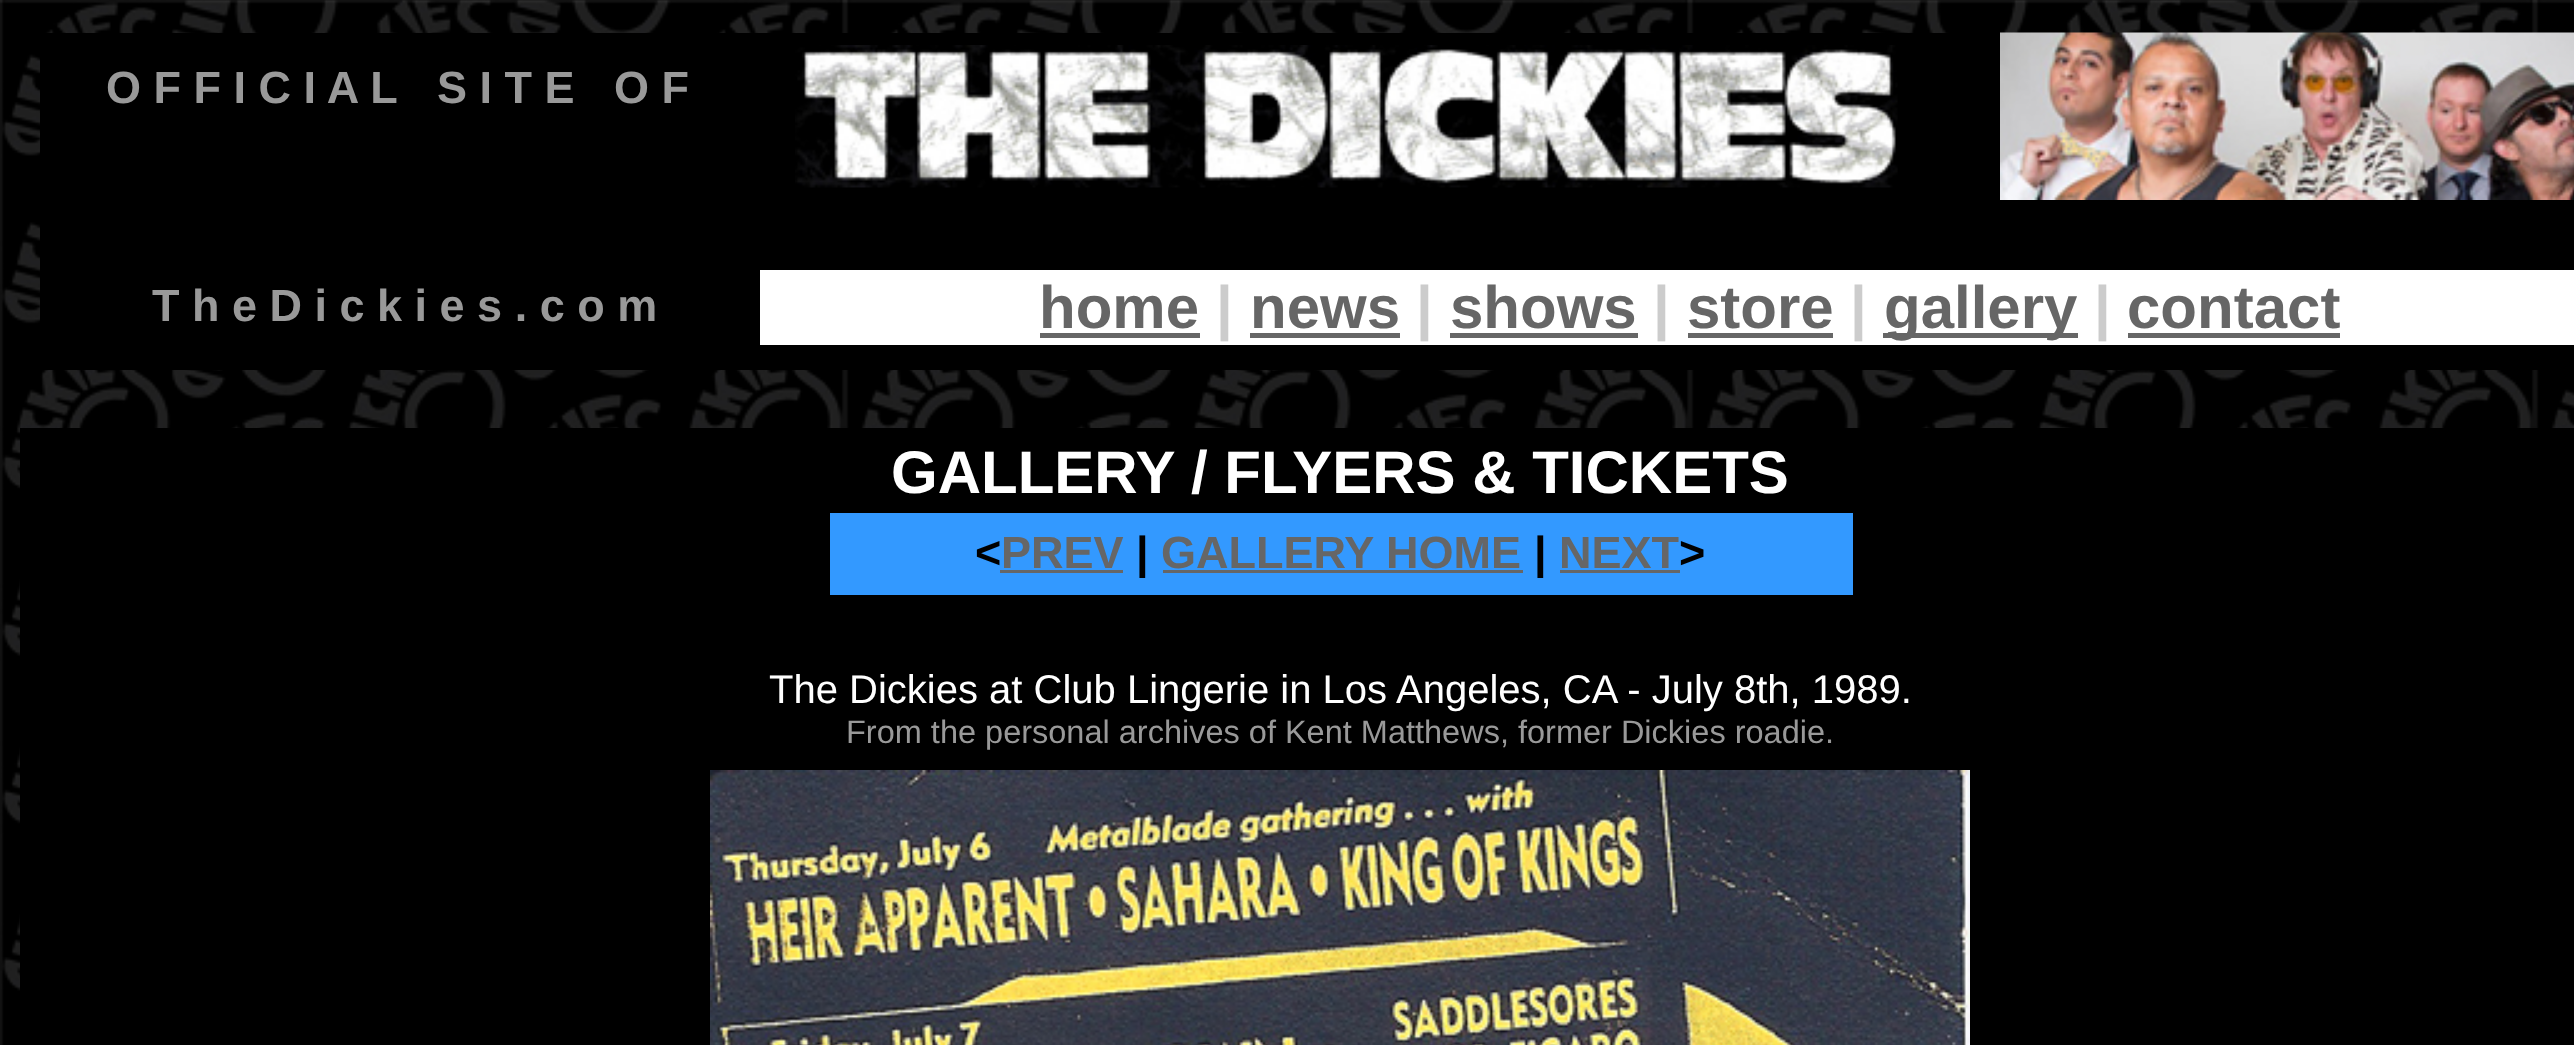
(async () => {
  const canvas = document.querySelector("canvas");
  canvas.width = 2574;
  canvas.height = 1045;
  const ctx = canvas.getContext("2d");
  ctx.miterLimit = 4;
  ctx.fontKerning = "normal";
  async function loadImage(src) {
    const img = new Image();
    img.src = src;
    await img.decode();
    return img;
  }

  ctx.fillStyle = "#ffffff";
  ctx.fillRect(0, 0, 2574, 1045);
  ctx.drawImage(await loadImage("img/1.png"), 0, 0, 2574, 1045);
  ctx.fillStyle = "#000000";
  ctx.fillRect(40, 33, 1960, 167);
  ctx.drawImage(await loadImage("img/2.png"), 795, 45, 1103, 143);
  ctx.drawImage(await loadImage("img/3.png"), 2000, 32, 574, 168);
  for (const [x, y, w, h, color] of [
    [40, 200, 2534, 45, "#000000"],
    [40, 245, 2534, 125, "#000000"],
    [760, 270, 1814, 75, "#ffffff"],
    [1040, 333, 160, 5, "#666666"],
    [1250, 333, 150, 5, "#666666"],
    [1450, 333, 188, 5, "#666666"],
    [1688, 333, 145, 5, "#666666"],
    [1883, 333, 195, 5, "#666666"],
    [2128, 333, 212, 5, "#666666"],
    [20, 428, 2554, 617, "#000000"],
    [830, 513, 1023, 82, "#3399ff"],
    [1000, 570, 123, 3, "#666666"],
    [1163, 570, 360, 3, "#666666"],
    [1560, 570, 120, 3, "#666666"],
  ]) {
    ctx.fillStyle = color;
    ctx.fillRect(x, y, w, h);
  }
  ctx.drawImage(await loadImage("img/4.png"), 710, 770, 1260, 275);
  ctx.font = "bold 45px Liberation Sans";
  ctx.fillStyle = "#999999";
  for (const [text, x, y] of [
    ["O F F I C I A L", 106, 103],
    ["S I T E", 437, 103],
    ["O F", 614, 103],
    ["T h e D i c k i e s . c o m", 152, 321],
  ]) {
    ctx.fillText(text, x, y);
  }
  ctx.font = "bold 60px Liberation Sans";
  ctx.fillStyle = "#666666";
  ctx.fillText("home", 1039, 328);
  ctx.fillStyle = "#cccccc";
  ctx.fillText("|", 1216, 328);
  ctx.fillStyle = "#666666";
  ctx.fillText("news", 1250, 328);
  ctx.fillStyle = "#cccccc";
  ctx.fillText("|", 1416, 328);
  ctx.fillStyle = "#666666";
  ctx.fillText("shows", 1450, 328);
  ctx.fillStyle = "#cccccc";
  ctx.fillText("|", 1653, 328);
  ctx.fillStyle = "#666666";
  ctx.fillText("store", 1687, 328);
  ctx.fillStyle = "#cccccc";
  ctx.fillText("|", 1850, 328);
  ctx.fillStyle = "#666666";
  ctx.fillText("gallery", 1884, 328);
  ctx.fillStyle = "#cccccc";
  ctx.fillText("|", 2094, 328);
  ctx.fillStyle = "#666666";
  ctx.fillText("contact", 2127, 328);
  ctx.fillStyle = "#ffffff";
  ctx.fillText("GALLERY / FLYERS & TICKETS", 891, 493);
  ctx.font = "bold 45px Liberation Sans";
  ctx.fillStyle = "#000000";
  ctx.fillText("<", 975, 568);
  ctx.fillStyle = "#666666";
  ctx.fillText("PREV", 1001, 568);
  ctx.fillStyle = "#000000";
  ctx.fillText("|", 1136, 568);
  ctx.fillStyle = "#666666";
  ctx.fillText("GALLERY HOME", 1161, 568);
  ctx.fillStyle = "#000000";
  ctx.fillText("|", 1534, 568);
  ctx.fillStyle = "#666666";
  ctx.fillText("NEXT", 1559, 568);
  ctx.fillStyle = "#000000";
  ctx.fillText(">", 1679, 568);
  ctx.font = "40px Liberation Sans";
  ctx.fillStyle = "#ffffff";
  ctx.fillText("The Dickies at Club Lingerie in Los Angeles, CA - July 8th, 1989.", 769, 703);
  ctx.font = "32.5px Liberation Sans";
  ctx.fillStyle = "#999999";
  ctx.fillText("From the personal archives of Kent Matthews, former Dickies roadie.", 846, 743);
})();
